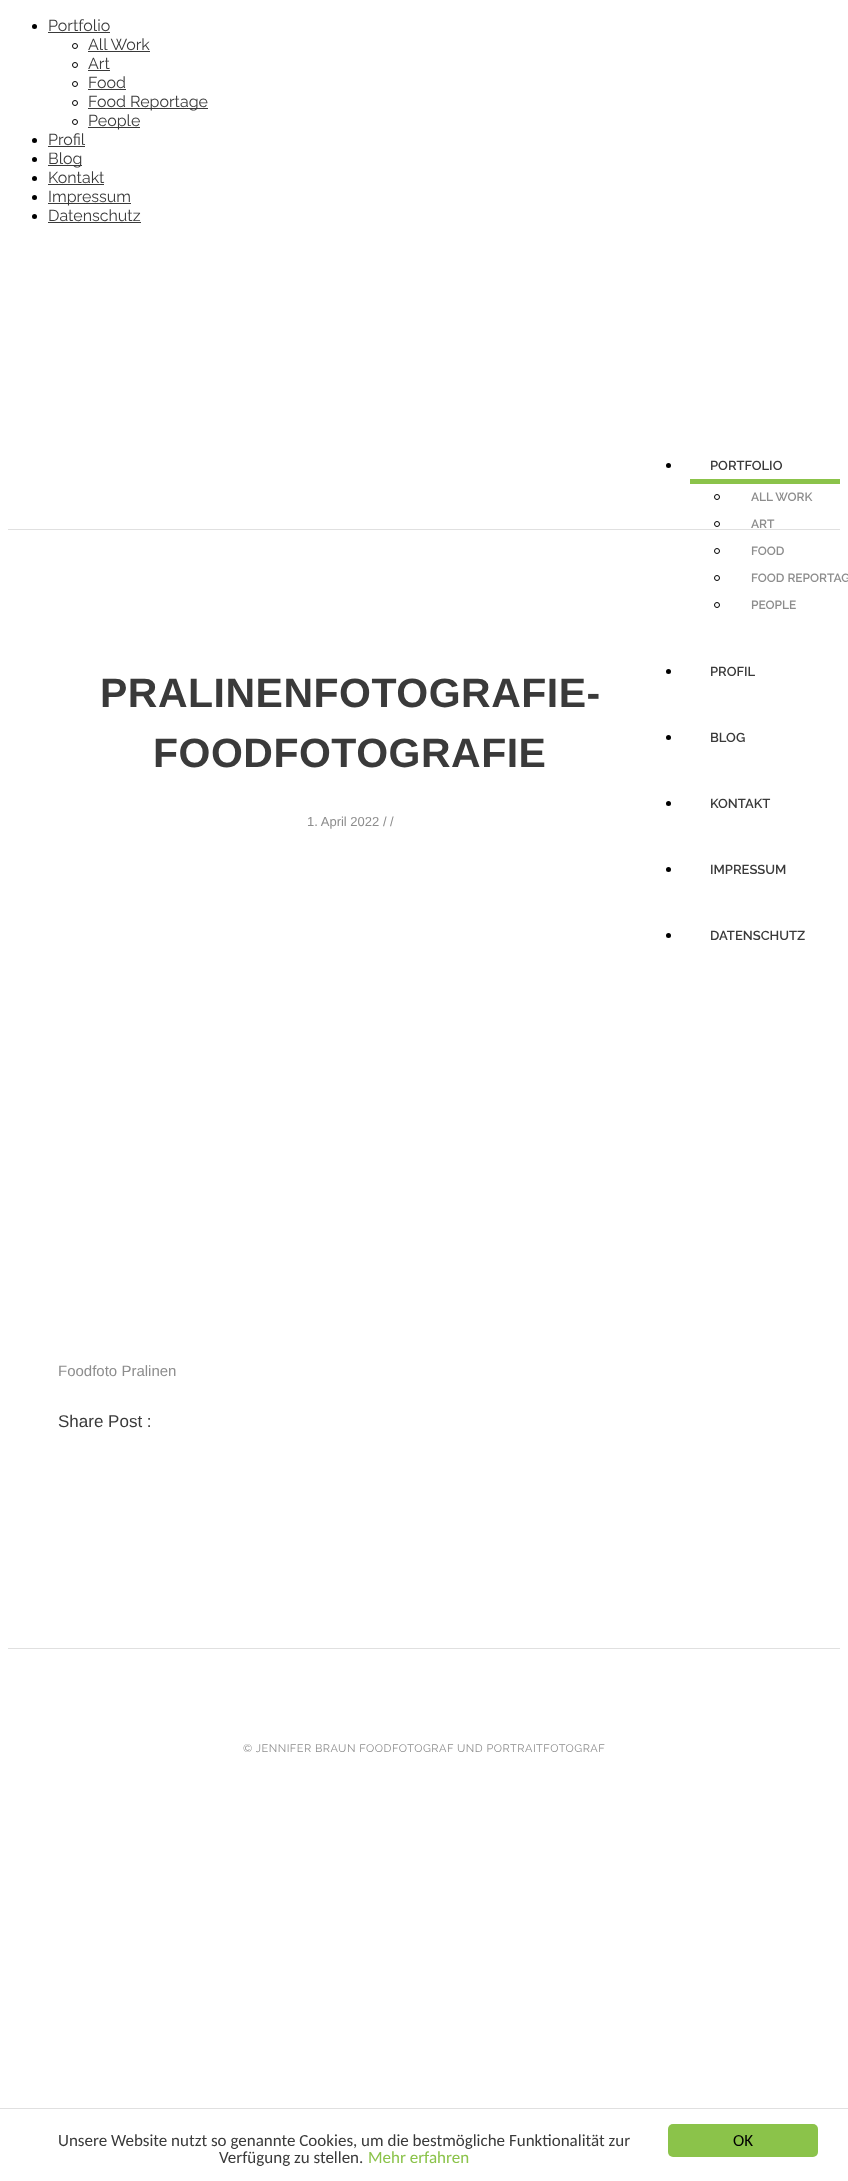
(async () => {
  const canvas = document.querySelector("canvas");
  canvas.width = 848;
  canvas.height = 2181;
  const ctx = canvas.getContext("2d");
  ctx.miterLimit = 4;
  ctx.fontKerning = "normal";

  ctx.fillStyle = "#ffffff";
  ctx.fillRect(0, 0, 848, 2181);
  ctx.fillStyle = "#000000";
  ctx.beginPath();
  ctx.arc(34.5, 26.5, 2.5, 0, Math.PI * 2);
  ctx.fill();
  ctx.fillStyle = "#3a3a3a";
  ctx.fillRect(48, 32, 62, 1);
  ctx.beginPath();
  ctx.arc(75, 46, 2.5, 0, Math.PI * 2);
  ctx.strokeStyle = "#000000";
  ctx.stroke();
  ctx.fillRect(88, 51, 62, 1);
  ctx.beginPath();
  ctx.arc(75, 65, 2.5, 0, Math.PI * 2);
  ctx.stroke();
  ctx.fillRect(88, 70, 22, 1);
  ctx.beginPath();
  ctx.arc(75, 84, 2.5, 0, Math.PI * 2);
  ctx.stroke();
  ctx.fillRect(88, 89, 38, 1);
  ctx.beginPath();
  ctx.arc(75, 103, 2.5, 0, Math.PI * 2);
  ctx.stroke();
  ctx.fillRect(88, 108, 120, 1);
  ctx.beginPath();
  ctx.arc(75, 122, 2.5, 0, Math.PI * 2);
  ctx.stroke();
  ctx.fillRect(88, 127, 52, 1);
  ctx.fillStyle = "#000000";
  ctx.beginPath();
  ctx.arc(34.5, 140.5, 2.5, 0, Math.PI * 2);
  ctx.fill();
  ctx.fillStyle = "#3a3a3a";
  ctx.fillRect(48, 146, 37, 1);
  ctx.fillStyle = "#000000";
  ctx.beginPath();
  ctx.arc(34.5, 159.5, 2.5, 0, Math.PI * 2);
  ctx.fill();
  ctx.fillStyle = "#3a3a3a";
  ctx.fillRect(48, 165, 34, 1);
  ctx.fillStyle = "#000000";
  ctx.beginPath();
  ctx.arc(34.5, 178.5, 2.5, 0, Math.PI * 2);
  ctx.fill();
  ctx.fillStyle = "#3a3a3a";
  ctx.fillRect(48, 184, 56, 1);
  ctx.fillStyle = "#000000";
  ctx.beginPath();
  ctx.arc(34.5, 197.5, 2.5, 0, Math.PI * 2);
  ctx.fill();
  ctx.fillStyle = "#3a3a3a";
  ctx.fillRect(48, 203, 83, 1);
  ctx.fillStyle = "#000000";
  ctx.beginPath();
  ctx.arc(34.5, 216.5, 2.5, 0, Math.PI * 2);
  ctx.fill();
  ctx.fillStyle = "#3a3a3a";
  ctx.fillRect(48, 222, 93, 1);
  ctx.fillStyle = "#e0e0e0";
  ctx.fillRect(8, 529, 832, 1);
  ctx.fillStyle = "#000000";
  ctx.beginPath();
  ctx.arc(668.5, 465.5, 2.5, 0, Math.PI * 2);
  ctx.fill();
  ctx.fillStyle = "#8bc34a";
  ctx.fillRect(690, 479, 150, 5);
  ctx.beginPath();
  ctx.arc(717, 497, 2.5, 0, Math.PI * 2);
  ctx.stroke();
  ctx.beginPath();
  ctx.arc(717, 524, 2.5, 0, Math.PI * 2);
  ctx.stroke();
  ctx.beginPath();
  ctx.arc(717, 551, 2.5, 0, Math.PI * 2);
  ctx.stroke();
  ctx.beginPath();
  ctx.arc(717, 578, 2.5, 0, Math.PI * 2);
  ctx.stroke();
  ctx.beginPath();
  ctx.arc(717, 605, 2.5, 0, Math.PI * 2);
  ctx.stroke();
  ctx.fillStyle = "#000000";
  ctx.beginPath();
  ctx.arc(668.5, 671.5, 2.5, 0, Math.PI * 2);
  ctx.fill();
  ctx.beginPath();
  ctx.arc(668.5, 737.5, 2.5, 0, Math.PI * 2);
  ctx.fill();
  ctx.beginPath();
  ctx.arc(668.5, 803.5, 2.5, 0, Math.PI * 2);
  ctx.fill();
  ctx.beginPath();
  ctx.arc(668.5, 869.5, 2.5, 0, Math.PI * 2);
  ctx.fill();
  ctx.beginPath();
  ctx.arc(668.5, 935.5, 2.5, 0, Math.PI * 2);
  ctx.fill();
  ctx.fillStyle = "#e0e0e0";
  ctx.fillRect(8, 1648, 832, 1);
  ctx.fillRect(0, 2108, 848, 1);
  ctx.fillStyle = "#8bc34a";
  ctx.beginPath();
  ctx.roundRect(668, 2124, 150, 33, 5);
  ctx.fill();
  ctx.font = "16px Raleway";
  ctx.fillStyle = "#3a3a3a";
  for (const [text, x, y] of [
    ["Portfolio", 48, 31],
    ["All Work", 88, 50],
    ["Art", 88, 69],
    ["Food", 88, 88],
    ["Food Reportage", 88, 107],
    ["People", 88, 126],
    ["Profil", 48, 145],
    ["Blog", 48, 164],
    ["Kontakt", 48, 183],
    ["Impressum", 48, 202],
    ["Datenschutz", 48, 221],
  ]) {
    ctx.fillText(text, x, y);
  }
  ctx.font = "600 13px Raleway";
  ctx.fillText("PORTFOLIO", 710, 470);
  ctx.font = "600 12px Raleway";
  ctx.fillStyle = "#8d8d8d";
  for (const [text, x, y] of [
    ["ALL WORK", 751, 501],
    ["ART", 751, 528],
    ["FOOD", 751, 555],
    ["FOOD REPORTAG", 751, 582],
    ["PEOPLE", 751, 609],
  ]) {
    ctx.fillText(text, x, y);
  }
  ctx.font = "600 13px Raleway";
  ctx.fillStyle = "#3a3a3a";
  for (const [text, x, y] of [
    ["PROFIL", 710, 676],
    ["BLOG", 710, 742],
    ["KONTAKT", 710, 808],
    ["IMPRESSUM", 710, 874],
    ["DATENSCHUTZ", 710, 940],
  ]) {
    ctx.fillText(text, x, y);
  }
  ctx.letterSpacing = "0.5px";
  ctx.font = "bold 41px Liberation Sans";
  ctx.fillText("PRALINENFOTOGRAFIE-", 100, 707);
  ctx.fillText("FOODFOTOGRAFIE", 153, 767);
  ctx.letterSpacing = "0px";
  ctx.font = "13px Liberation Sans";
  ctx.fillStyle = "#8d8d8d";
  ctx.fillText("1. April 2022 / /", 307, 826);
  ctx.font = "15px Liberation Sans";
  ctx.fillText("Foodfoto Pralinen", 58, 1376);
  ctx.font = "17px Liberation Sans";
  ctx.fillStyle = "#3a3a3a";
  ctx.fillText("Share Post :", 58, 1427);
  ctx.letterSpacing = "0.5px";
  ctx.font = "11px Raleway";
  ctx.fillStyle = "#8d8d8d";
  ctx.fillText("© JENNIFER BRAUN FOODFOTOGRAF UND PORTRAITFOTOGRAF", 243, 1752);
  ctx.letterSpacing = "0px";
  ctx.font = "17px Carlito";
  ctx.fillStyle = "#3a3a3a";
  ctx.fillText("Unsere Website nutzt so genannte Cookies, um die bestmögliche Funktionalität zur", 58, 2146);
  ctx.fillText("Verfügung zu stellen.", 219, 2163);
  ctx.fillStyle = "#8bc34a";
  ctx.fillText("Mehr erfahren", 368, 2163);
  ctx.fillStyle = "#000000";
  ctx.fillText("OK", 733, 2146);
})();
